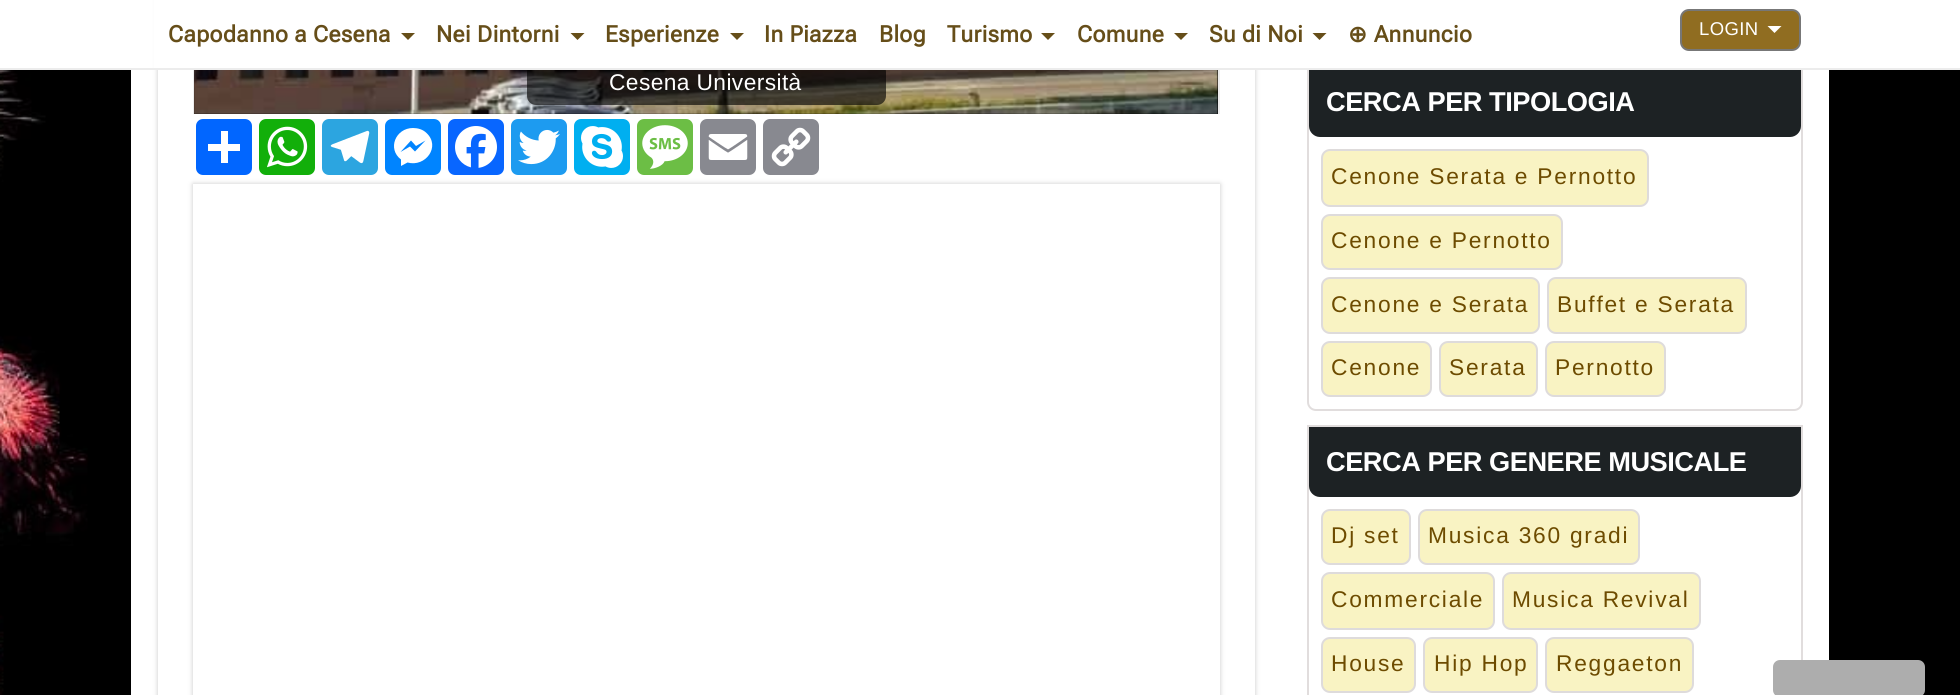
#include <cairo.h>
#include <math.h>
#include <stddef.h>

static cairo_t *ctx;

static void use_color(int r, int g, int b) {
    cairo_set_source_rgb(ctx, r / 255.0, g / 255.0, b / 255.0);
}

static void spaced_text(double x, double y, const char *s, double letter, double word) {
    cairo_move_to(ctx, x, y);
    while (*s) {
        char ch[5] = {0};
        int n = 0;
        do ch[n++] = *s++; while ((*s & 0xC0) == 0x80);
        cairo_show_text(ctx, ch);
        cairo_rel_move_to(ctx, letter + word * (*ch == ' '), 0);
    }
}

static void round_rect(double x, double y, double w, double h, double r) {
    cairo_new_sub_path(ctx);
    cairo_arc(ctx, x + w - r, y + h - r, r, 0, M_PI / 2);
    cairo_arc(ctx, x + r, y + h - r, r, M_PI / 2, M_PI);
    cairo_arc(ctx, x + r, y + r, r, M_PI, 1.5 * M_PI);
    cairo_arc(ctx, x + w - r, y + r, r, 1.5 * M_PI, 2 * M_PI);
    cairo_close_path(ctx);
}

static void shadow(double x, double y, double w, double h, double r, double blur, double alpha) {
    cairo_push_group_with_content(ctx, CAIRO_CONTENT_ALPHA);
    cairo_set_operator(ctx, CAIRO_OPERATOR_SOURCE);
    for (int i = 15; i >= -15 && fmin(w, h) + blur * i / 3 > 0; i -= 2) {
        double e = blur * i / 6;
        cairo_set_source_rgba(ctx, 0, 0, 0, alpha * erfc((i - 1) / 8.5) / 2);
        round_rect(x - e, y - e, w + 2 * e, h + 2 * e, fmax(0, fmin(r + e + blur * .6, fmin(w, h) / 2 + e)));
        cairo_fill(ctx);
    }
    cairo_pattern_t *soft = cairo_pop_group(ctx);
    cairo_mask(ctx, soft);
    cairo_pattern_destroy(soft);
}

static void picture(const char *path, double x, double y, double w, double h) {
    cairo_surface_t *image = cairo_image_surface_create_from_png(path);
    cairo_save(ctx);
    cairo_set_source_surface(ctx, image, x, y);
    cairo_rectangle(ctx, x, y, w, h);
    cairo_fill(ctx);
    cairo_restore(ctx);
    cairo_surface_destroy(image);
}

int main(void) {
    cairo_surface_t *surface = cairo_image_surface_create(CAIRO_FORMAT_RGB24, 1960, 695);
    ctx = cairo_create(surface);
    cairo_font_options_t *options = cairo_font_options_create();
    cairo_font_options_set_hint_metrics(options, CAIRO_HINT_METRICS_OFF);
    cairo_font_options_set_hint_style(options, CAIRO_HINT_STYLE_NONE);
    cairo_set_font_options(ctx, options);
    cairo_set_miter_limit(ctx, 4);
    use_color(255, 255, 255);
    cairo_paint(ctx);
    picture("img1.png", 0, 70, 1960, 625);
    use_color(255, 255, 255);
    cairo_rectangle(ctx, 131, 70, 1698, 625);
    cairo_fill(ctx);
    use_color(202, 202, 202);
    shadow(158, -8, 1097, 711, 0, 2.5, 1);
    use_color(255, 255, 255);
    cairo_rectangle(ctx, 158, 70, 1097, 625);
    cairo_fill(ctx);
    use_color(0, 0, 0);
    cairo_rectangle(ctx, 194, 70, 1024, 44);
    cairo_fill(ctx);
    picture("img2.png", 194, 70, 1024, 44);
    cairo_set_source_rgba(ctx, 0, 0, 0, 0.63);
    round_rect(527, 63, 359, 42, 9);
    cairo_fill(ctx);
    cairo_new_path(ctx);
    cairo_move_to(ctx, 1308, 68);
    cairo_line_to(ctx, 1802, 68);
    cairo_line_to(ctx, 1802, 402);
    cairo_curve_to(ctx, 1802, 406.5, 1798.5, 410, 1794, 410);
    cairo_line_to(ctx, 1316, 410);
    cairo_curve_to(ctx, 1311.5, 410, 1308, 406.5, 1308, 402);
    cairo_close_path(ctx);
    use_color(225, 221, 221);
    cairo_stroke(ctx);
    use_color(255, 255, 255);
    cairo_rectangle(ctx, 154, 0, 1649, 68);
    cairo_fill(ctx);
    use_color(29, 34, 36);
    cairo_new_path(ctx);
    cairo_move_to(ctx, 1309, 68);
    cairo_line_to(ctx, 1801, 68);
    cairo_line_to(ctx, 1801, 126);
    cairo_curve_to(ctx, 1801, 132, 1796, 137, 1790, 137);
    cairo_line_to(ctx, 1320, 137);
    cairo_curve_to(ctx, 1314, 137, 1309, 132, 1309, 126);
    cairo_close_path(ctx);
    cairo_fill(ctx);
    use_color(236, 236, 236);
    cairo_rectangle(ctx, 0, 68, 1960, 2);
    cairo_fill(ctx);
    cairo_select_font_face(ctx, "Roboto Flex", CAIRO_FONT_SLANT_NORMAL, CAIRO_FONT_WEIGHT_BOLD);
    cairo_set_font_size(ctx, 22.75);
    use_color(102, 78, 25);
    spaced_text(168, 42, "Capodanno a Cesena", 0.4, 0);
    cairo_new_path(ctx);
    cairo_move_to(ctx, 401, 33);
    cairo_line_to(ctx, 415, 33);
    cairo_line_to(ctx, 408, 40);
    cairo_close_path(ctx);
    cairo_fill(ctx);
    spaced_text(436, 42, "Nei Dintorni", 0.4, 0);
    cairo_new_path(ctx);
    cairo_move_to(ctx, 570.5, 33);
    cairo_line_to(ctx, 584.5, 33);
    cairo_line_to(ctx, 577.5, 40);
    cairo_close_path(ctx);
    cairo_fill(ctx);
    spaced_text(605, 42, "Esperienze", 0.4, 0);
    cairo_new_path(ctx);
    cairo_move_to(ctx, 730, 33);
    cairo_line_to(ctx, 744, 33);
    cairo_line_to(ctx, 737, 40);
    cairo_close_path(ctx);
    cairo_fill(ctx);
    spaced_text(764, 42, "In Piazza", 0.4, 0);
    spaced_text(879, 42, "Blog", 0.4, 0);
    spaced_text(947, 42, "Turismo", 0.4, 0);
    cairo_new_path(ctx);
    cairo_move_to(ctx, 1041, 33);
    cairo_line_to(ctx, 1055, 33);
    cairo_line_to(ctx, 1048, 40);
    cairo_close_path(ctx);
    cairo_fill(ctx);
    spaced_text(1077, 42, "Comune", 0.4, 0);
    cairo_new_path(ctx);
    cairo_move_to(ctx, 1174, 33);
    cairo_line_to(ctx, 1188, 33);
    cairo_line_to(ctx, 1181, 40);
    cairo_close_path(ctx);
    cairo_fill(ctx);
    spaced_text(1209, 42, "Su di Noi", 0.4, 0);
    cairo_new_path(ctx);
    cairo_move_to(ctx, 1312.5, 33);
    cairo_line_to(ctx, 1326.5, 33);
    cairo_line_to(ctx, 1319.5, 40);
    cairo_close_path(ctx);
    cairo_fill(ctx);
    cairo_select_font_face(ctx, "DejaVu Sans", CAIRO_FONT_SLANT_NORMAL, CAIRO_FONT_WEIGHT_BOLD);
    spaced_text(1348, 42, "⊕", 0.4, 0);
    cairo_select_font_face(ctx, "Roboto Flex", CAIRO_FONT_SLANT_NORMAL, CAIRO_FONT_WEIGHT_BOLD);
    spaced_text(1374, 42, "Annuncio", 0.4, 0);
    use_color(144, 109, 33);
    round_rect(1681, 10, 119, 40, 8);
    cairo_fill_preserve(ctx);
    use_color(119, 119, 119);
    cairo_stroke(ctx);
    cairo_select_font_face(ctx, "Liberation Sans", CAIRO_FONT_SLANT_NORMAL, CAIRO_FONT_WEIGHT_NORMAL);
    cairo_set_font_size(ctx, 18.5);
    use_color(255, 255, 255);
    spaced_text(1699, 35, "LOGIN", 0.4, 0);
    cairo_new_path(ctx);
    cairo_move_to(ctx, 1767.5, 26);
    cairo_line_to(ctx, 1781.5, 26);
    cairo_line_to(ctx, 1774.5, 33);
    cairo_close_path(ctx);
    cairo_fill(ctx);
    use_color(237, 237, 237);
    cairo_rectangle(ctx, 1218, 70, 2, 44);
    cairo_fill(ctx);
    cairo_rectangle(ctx, 193, 70, 1, 44);
    cairo_fill(ctx);
    cairo_set_font_size(ctx, 22.75);
    use_color(255, 255, 255);
    spaced_text(609, 90, "Cesena Università", 0.4, 0);
    use_color(1, 102, 255);
    round_rect(196, 119, 56, 56, 7);
    cairo_fill(ctx);
    use_color(255, 255, 255);
    cairo_rectangle(ctx, 221, 131, 7, 32);
    cairo_fill(ctx);
    cairo_rectangle(ctx, 208, 144, 32, 7);
    cairo_fill(ctx);
    use_color(18, 175, 10);
    round_rect(259, 119, 56, 56, 7);
    cairo_fill(ctx);
    picture("img3.png", 267, 126, 41, 42);
    use_color(44, 165, 224);
    round_rect(322, 119, 56, 56, 7);
    cairo_fill(ctx);
    picture("img4.png", 330, 130, 40, 34);
    use_color(0, 132, 255);
    round_rect(385, 119, 56, 56, 7);
    cairo_fill(ctx);
    use_color(255, 255, 255);
    cairo_new_path(ctx);
    cairo_move_to(ctx, 413, 128);
    cairo_curve_to(ctx, 395.5, 128, 387, 149, 401, 159.5);
    cairo_line_to(ctx, 401, 166);
    cairo_line_to(ctx, 407.5, 162.5);
    cairo_curve_to(ctx, 425.5, 167.5, 441, 146.5, 426.5, 133);
    cairo_curve_to(ctx, 423, 129.5, 418, 128, 413, 128);
    cairo_move_to(ctx, 415, 151.5);
    cairo_line_to(ctx, 410, 146.5);
    cairo_line_to(ctx, 400.5, 152);
    cairo_line_to(ctx, 411, 140.5);
    cairo_line_to(ctx, 416, 146);
    cairo_line_to(ctx, 425.5, 140.5);
    cairo_close_path(ctx);
    cairo_fill(ctx);
    use_color(8, 102, 255);
    round_rect(448, 119, 56, 56, 7);
    cairo_fill(ctx);
    picture("img5.png", 455, 126, 42, 42);
    use_color(29, 155, 240);
    round_rect(511, 119, 56, 56, 7);
    cairo_fill(ctx);
    picture("img6.png", 518, 129, 42, 36);
    use_color(0, 175, 240);
    round_rect(574, 119, 56, 56, 7);
    cairo_fill(ctx);
    picture("img7.png", 581, 126, 42, 42);
    use_color(108, 190, 69);
    round_rect(637, 119, 56, 56, 7);
    cairo_fill(ctx);
    picture("img8.png", 642, 125, 46, 44);
    use_color(136, 137, 144);
    round_rect(700, 119, 56, 56, 7);
    cairo_fill(ctx);
    picture("img9.png", 708, 134, 40, 26);
    round_rect(763, 119, 56, 56, 7);
    cairo_fill(ctx);
    picture("img10.png", 771, 127, 40, 40);
    use_color(202, 202, 202);
    shadow(193, 184, 1027, 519, 0, 2.5, 1);
    use_color(255, 255, 255);
    cairo_rectangle(ctx, 193, 184, 1027, 511);
    cairo_fill(ctx);
    cairo_select_font_face(ctx, "Liberation Sans", CAIRO_FONT_SLANT_NORMAL, CAIRO_FONT_WEIGHT_BOLD);
    cairo_set_font_size(ctx, 27.25);
    spaced_text(1326, 111, "CERCA PER TIPOLOGIA", -0.5, 0);
    use_color(249, 243, 195);
    round_rect(1322, 150, 326, 56, 8);
    cairo_fill_preserve(ctx);
    use_color(222, 219, 219);
    cairo_stroke(ctx);
    cairo_select_font_face(ctx, "Liberation Sans", CAIRO_FONT_SLANT_NORMAL, CAIRO_FONT_WEIGHT_NORMAL);
    cairo_set_font_size(ctx, 22.75);
    use_color(109, 75, 0);
    spaced_text(1331, 184, "Cenone Serata e Pernotto", 1.75, 0);
    use_color(249, 243, 195);
    round_rect(1322, 215, 240, 54, 8);
    cairo_fill_preserve(ctx);
    use_color(222, 219, 219);
    cairo_stroke(ctx);
    use_color(109, 75, 0);
    spaced_text(1331, 248, "Cenone e Pernotto", 1.75, 0);
    use_color(249, 243, 195);
    round_rect(1322, 278, 217, 55, 8);
    cairo_fill_preserve(ctx);
    use_color(222, 219, 219);
    cairo_stroke(ctx);
    use_color(109, 75, 0);
    spaced_text(1331, 312, "Cenone e Serata", 1.75, 0);
    use_color(249, 243, 195);
    round_rect(1548, 278, 198, 55, 8);
    cairo_fill_preserve(ctx);
    use_color(222, 219, 219);
    cairo_stroke(ctx);
    use_color(109, 75, 0);
    spaced_text(1557, 312, "Buffet e Serata", 1.75, 0);
    use_color(249, 243, 195);
    round_rect(1322, 342, 109, 54, 8);
    cairo_fill_preserve(ctx);
    use_color(222, 219, 219);
    cairo_stroke(ctx);
    use_color(109, 75, 0);
    spaced_text(1331, 375, "Cenone", 1.75, 0);
    use_color(249, 243, 195);
    round_rect(1440, 342, 97, 54, 8);
    cairo_fill_preserve(ctx);
    use_color(222, 219, 219);
    cairo_stroke(ctx);
    use_color(109, 75, 0);
    spaced_text(1449, 375, "Serata", 1.75, 0);
    use_color(249, 243, 195);
    round_rect(1546, 342, 119, 54, 8);
    cairo_fill_preserve(ctx);
    use_color(222, 219, 219);
    cairo_stroke(ctx);
    use_color(109, 75, 0);
    spaced_text(1555, 375, "Pernotto", 1.75, 0);
    cairo_rectangle(ctx, 1308, 426, 494, 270);
    use_color(225, 221, 221);
    cairo_stroke(ctx);
    use_color(29, 34, 36);
    cairo_new_path(ctx);
    cairo_move_to(ctx, 1309, 427);
    cairo_line_to(ctx, 1801, 427);
    cairo_line_to(ctx, 1801, 486);
    cairo_curve_to(ctx, 1801, 492, 1796, 497, 1790, 497);
    cairo_line_to(ctx, 1320, 497);
    cairo_curve_to(ctx, 1314, 497, 1309, 492, 1309, 486);
    cairo_close_path(ctx);
    cairo_fill(ctx);
    cairo_select_font_face(ctx, "Liberation Sans", CAIRO_FONT_SLANT_NORMAL, CAIRO_FONT_WEIGHT_BOLD);
    cairo_set_font_size(ctx, 27.25);
    use_color(255, 255, 255);
    spaced_text(1326, 471, "CERCA PER GENERE MUSICALE", -0.5, 0);
    use_color(249, 243, 195);
    round_rect(1322, 510, 88, 54, 8);
    cairo_fill_preserve(ctx);
    use_color(222, 219, 219);
    cairo_stroke(ctx);
    cairo_select_font_face(ctx, "Liberation Sans", CAIRO_FONT_SLANT_NORMAL, CAIRO_FONT_WEIGHT_NORMAL);
    cairo_set_font_size(ctx, 22.75);
    use_color(109, 75, 0);
    spaced_text(1331, 543, "Dj set", 1.75, 0);
    use_color(249, 243, 195);
    round_rect(1419, 510, 220, 54, 8);
    cairo_fill_preserve(ctx);
    use_color(222, 219, 219);
    cairo_stroke(ctx);
    use_color(109, 75, 0);
    spaced_text(1428, 543, "Musica 360 gradi", 1.75, 0);
    use_color(249, 243, 195);
    round_rect(1322, 573, 172, 56, 8);
    cairo_fill_preserve(ctx);
    use_color(222, 219, 219);
    cairo_stroke(ctx);
    use_color(109, 75, 0);
    spaced_text(1331, 607, "Commerciale", 1.75, 0);
    use_color(249, 243, 195);
    round_rect(1503, 573, 197, 56, 8);
    cairo_fill_preserve(ctx);
    use_color(222, 219, 219);
    cairo_stroke(ctx);
    use_color(109, 75, 0);
    spaced_text(1512, 607, "Musica Revival", 1.75, 0);
    use_color(249, 243, 195);
    round_rect(1322, 638, 93, 54, 8);
    cairo_fill_preserve(ctx);
    use_color(222, 219, 219);
    cairo_stroke(ctx);
    use_color(109, 75, 0);
    spaced_text(1331, 671, "House", 1.75, 0);
    use_color(249, 243, 195);
    round_rect(1424, 638, 113, 54, 8);
    cairo_fill_preserve(ctx);
    use_color(222, 219, 219);
    cairo_stroke(ctx);
    use_color(109, 75, 0);
    spaced_text(1434, 671, "Hip Hop", 1.75, 0);
    use_color(249, 243, 195);
    round_rect(1546, 638, 147, 54, 8);
    cairo_fill_preserve(ctx);
    use_color(222, 219, 219);
    cairo_stroke(ctx);
    use_color(109, 75, 0);
    spaced_text(1556, 671, "Reggaeton", 1.75, 0);
    use_color(173, 173, 173);
    round_rect(1773, 660, 152, 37, 7);
    cairo_fill(ctx);
    cairo_surface_write_to_png(surface, "result.png");
    cairo_font_options_destroy(options);
    cairo_destroy(ctx);
    cairo_surface_destroy(surface);
    return 0;
}
